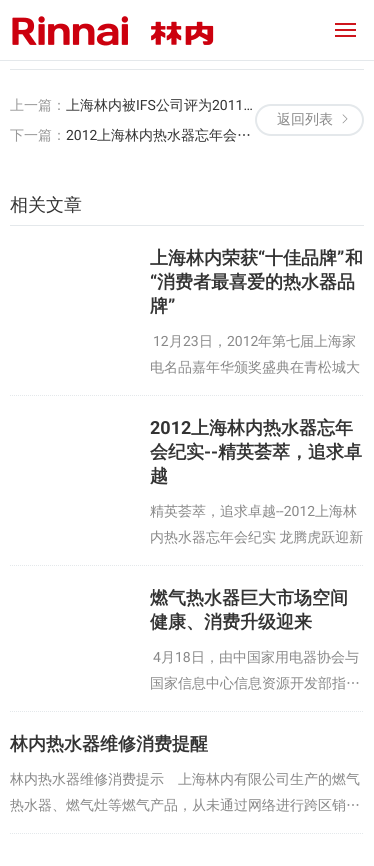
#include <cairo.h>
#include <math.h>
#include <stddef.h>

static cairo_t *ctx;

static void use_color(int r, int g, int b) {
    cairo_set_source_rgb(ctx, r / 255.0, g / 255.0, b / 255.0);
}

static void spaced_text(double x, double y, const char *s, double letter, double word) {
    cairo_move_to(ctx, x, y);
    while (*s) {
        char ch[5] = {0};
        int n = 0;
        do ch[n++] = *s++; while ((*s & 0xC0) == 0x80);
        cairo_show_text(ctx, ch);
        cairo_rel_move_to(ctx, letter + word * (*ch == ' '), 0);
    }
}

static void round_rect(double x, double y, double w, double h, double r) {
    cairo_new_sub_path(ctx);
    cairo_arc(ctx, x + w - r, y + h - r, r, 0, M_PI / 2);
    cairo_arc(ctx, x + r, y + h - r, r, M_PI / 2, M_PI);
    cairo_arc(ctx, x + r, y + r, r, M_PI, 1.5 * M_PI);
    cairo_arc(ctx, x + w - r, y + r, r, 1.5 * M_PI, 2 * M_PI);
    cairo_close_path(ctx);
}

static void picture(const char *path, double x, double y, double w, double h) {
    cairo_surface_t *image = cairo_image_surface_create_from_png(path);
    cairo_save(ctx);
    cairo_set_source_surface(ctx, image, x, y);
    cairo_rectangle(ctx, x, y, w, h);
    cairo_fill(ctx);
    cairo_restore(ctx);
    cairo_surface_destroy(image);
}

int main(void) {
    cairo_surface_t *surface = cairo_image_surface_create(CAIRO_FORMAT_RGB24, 374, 866);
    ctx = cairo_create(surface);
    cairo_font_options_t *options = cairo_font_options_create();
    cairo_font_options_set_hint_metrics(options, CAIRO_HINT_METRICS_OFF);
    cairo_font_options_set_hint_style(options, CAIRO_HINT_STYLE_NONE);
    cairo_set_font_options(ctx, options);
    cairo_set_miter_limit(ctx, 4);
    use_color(255, 255, 255);
    cairo_paint(ctx);
    use_color(228, 232, 235);
    cairo_rectangle(ctx, 0, 60, 374, 1);
    cairo_fill(ctx);
    picture("img1.png", 12, 16, 202, 30);
    use_color(206, 21, 28);
    cairo_rectangle(ctx, 335, 23, 21, 2);
    cairo_fill(ctx);
    cairo_rectangle(ctx, 335, 29, 21, 2);
    cairo_fill(ctx);
    cairo_rectangle(ctx, 335, 35, 21, 2);
    cairo_fill(ctx);
    use_color(228, 232, 235);
    cairo_rectangle(ctx, 10, 69, 354, 1);
    cairo_fill(ctx);
    cairo_select_font_face(ctx, "WenQuanYi Zen Hei Medium", CAIRO_FONT_SLANT_NORMAL, CAIRO_FONT_WEIGHT_NORMAL);
    cairo_set_font_size(ctx, 14);
    use_color(153, 153, 153);
    cairo_move_to(ctx, 10, 110);
    cairo_show_text(ctx, "上一篇：");
    use_color(51, 51, 51);
    cairo_move_to(ctx, 66, 110);
    cairo_show_text(ctx, "上海林内被");
    cairo_select_font_face(ctx, "Roboto", CAIRO_FONT_SLANT_NORMAL, CAIRO_FONT_WEIGHT_NORMAL);
    cairo_move_to(ctx, 136, 110);
    cairo_show_text(ctx, "IFS");
    cairo_select_font_face(ctx, "WenQuanYi Zen Hei Medium", CAIRO_FONT_SLANT_NORMAL, CAIRO_FONT_WEIGHT_NORMAL);
    cairo_move_to(ctx, 156, 110);
    cairo_show_text(ctx, "公司评为");
    cairo_select_font_face(ctx, "Roboto", CAIRO_FONT_SLANT_NORMAL, CAIRO_FONT_WEIGHT_NORMAL);
    cairo_move_to(ctx, 212, 110);
    cairo_show_text(ctx, "2011…");
    round_rect(256, 105, 107, 30, 15);
    use_color(228, 232, 235);
    cairo_stroke(ctx);
    cairo_select_font_face(ctx, "WenQuanYi Zen Hei Medium", CAIRO_FONT_SLANT_NORMAL, CAIRO_FONT_WEIGHT_NORMAL);
    use_color(136, 136, 136);
    cairo_move_to(ctx, 277, 124);
    cairo_show_text(ctx, "返回列表");
    picture("img2.png", 342, 114, 6, 10);
    use_color(153, 153, 153);
    cairo_move_to(ctx, 10, 140);
    cairo_show_text(ctx, "下一篇：");
    cairo_select_font_face(ctx, "Roboto", CAIRO_FONT_SLANT_NORMAL, CAIRO_FONT_WEIGHT_NORMAL);
    use_color(51, 51, 51);
    cairo_move_to(ctx, 66, 140);
    cairo_show_text(ctx, "2012");
    cairo_select_font_face(ctx, "WenQuanYi Zen Hei Medium", CAIRO_FONT_SLANT_NORMAL, CAIRO_FONT_WEIGHT_NORMAL);
    cairo_move_to(ctx, 97, 140);
    cairo_show_text(ctx, "上海林内热水器忘年会…");
    use_color(228, 232, 235);
    cairo_rectangle(ctx, 10, 225, 354, 1);
    cairo_fill(ctx);
    cairo_set_font_size(ctx, 18);
    use_color(51, 51, 51);
    cairo_move_to(ctx, 10, 211);
    cairo_show_text(ctx, "相关文章");
    cairo_select_font_face(ctx, "WenQuanYi Zen Hei", CAIRO_FONT_SLANT_NORMAL, CAIRO_FONT_WEIGHT_BOLD);
    cairo_move_to(ctx, 150, 264);
    cairo_show_text(ctx, "上海林内荣获");
    cairo_select_font_face(ctx, "Roboto", CAIRO_FONT_SLANT_NORMAL, CAIRO_FONT_WEIGHT_BOLD);
    cairo_move_to(ctx, 258, 264);
    cairo_show_text(ctx, "“");
    cairo_select_font_face(ctx, "WenQuanYi Zen Hei", CAIRO_FONT_SLANT_NORMAL, CAIRO_FONT_WEIGHT_BOLD);
    cairo_move_to(ctx, 265, 264);
    cairo_show_text(ctx, "十佳品牌");
    cairo_select_font_face(ctx, "Roboto", CAIRO_FONT_SLANT_NORMAL, CAIRO_FONT_WEIGHT_BOLD);
    cairo_move_to(ctx, 337, 264);
    cairo_show_text(ctx, "”");
    cairo_select_font_face(ctx, "WenQuanYi Zen Hei", CAIRO_FONT_SLANT_NORMAL, CAIRO_FONT_WEIGHT_BOLD);
    cairo_move_to(ctx, 345, 264);
    cairo_show_text(ctx, "和");
    cairo_select_font_face(ctx, "Roboto", CAIRO_FONT_SLANT_NORMAL, CAIRO_FONT_WEIGHT_BOLD);
    cairo_move_to(ctx, 150, 288);
    cairo_show_text(ctx, "“");
    cairo_select_font_face(ctx, "WenQuanYi Zen Hei", CAIRO_FONT_SLANT_NORMAL, CAIRO_FONT_WEIGHT_BOLD);
    cairo_move_to(ctx, 157, 288);
    cairo_show_text(ctx, "消费者最喜爱的热水器品");
    cairo_move_to(ctx, 150, 312);
    cairo_show_text(ctx, "牌");
    cairo_select_font_face(ctx, "Roboto", CAIRO_FONT_SLANT_NORMAL, CAIRO_FONT_WEIGHT_BOLD);
    cairo_move_to(ctx, 168, 312);
    cairo_show_text(ctx, "”");
    cairo_select_font_face(ctx, "Roboto", CAIRO_FONT_SLANT_NORMAL, CAIRO_FONT_WEIGHT_NORMAL);
    cairo_set_font_size(ctx, 14);
    use_color(136, 136, 136);
    cairo_move_to(ctx, 153, 346);
    cairo_show_text(ctx, "12");
    cairo_select_font_face(ctx, "WenQuanYi Zen Hei Medium", CAIRO_FONT_SLANT_NORMAL, CAIRO_FONT_WEIGHT_NORMAL);
    cairo_move_to(ctx, 169, 346);
    cairo_show_text(ctx, "月");
    cairo_select_font_face(ctx, "Roboto", CAIRO_FONT_SLANT_NORMAL, CAIRO_FONT_WEIGHT_NORMAL);
    cairo_move_to(ctx, 183, 346);
    cairo_show_text(ctx, "23");
    cairo_select_font_face(ctx, "WenQuanYi Zen Hei Medium", CAIRO_FONT_SLANT_NORMAL, CAIRO_FONT_WEIGHT_NORMAL);
    cairo_move_to(ctx, 199, 346);
    cairo_show_text(ctx, "日，");
    cairo_select_font_face(ctx, "Roboto", CAIRO_FONT_SLANT_NORMAL, CAIRO_FONT_WEIGHT_NORMAL);
    cairo_move_to(ctx, 227, 346);
    cairo_show_text(ctx, "2012");
    cairo_select_font_face(ctx, "WenQuanYi Zen Hei Medium", CAIRO_FONT_SLANT_NORMAL, CAIRO_FONT_WEIGHT_NORMAL);
    cairo_move_to(ctx, 258, 346);
    cairo_show_text(ctx, "年第七届上海家");
    cairo_move_to(ctx, 150, 372);
    cairo_show_text(ctx, "电名品嘉年华颁奖盛典在青松城大");
    cairo_new_path(ctx);
    cairo_move_to(ctx, 10, 395.5);
    cairo_line_to(ctx, 364, 395.5);
    use_color(228, 232, 235);
    cairo_set_line_width(ctx, 1);
    cairo_set_dash(ctx, (double[]){1, 1}, 2, 0);
    cairo_stroke(ctx);
    cairo_select_font_face(ctx, "Roboto", CAIRO_FONT_SLANT_NORMAL, CAIRO_FONT_WEIGHT_BOLD);
    cairo_set_font_size(ctx, 18);
    use_color(51, 51, 51);
    cairo_move_to(ctx, 150, 434);
    cairo_show_text(ctx, "2012");
    cairo_select_font_face(ctx, "WenQuanYi Zen Hei", CAIRO_FONT_SLANT_NORMAL, CAIRO_FONT_WEIGHT_BOLD);
    cairo_move_to(ctx, 191, 434);
    cairo_show_text(ctx, "上海林内热水器忘年");
    cairo_move_to(ctx, 150, 458);
    cairo_show_text(ctx, "会纪实");
    cairo_select_font_face(ctx, "Roboto", CAIRO_FONT_SLANT_NORMAL, CAIRO_FONT_WEIGHT_BOLD);
    cairo_move_to(ctx, 204, 458);
    cairo_show_text(ctx, "--");
    cairo_select_font_face(ctx, "WenQuanYi Zen Hei", CAIRO_FONT_SLANT_NORMAL, CAIRO_FONT_WEIGHT_BOLD);
    cairo_move_to(ctx, 218, 458);
    cairo_show_text(ctx, "精英荟萃，追求卓");
    cairo_move_to(ctx, 150, 482);
    cairo_show_text(ctx, "越");
    cairo_select_font_face(ctx, "WenQuanYi Zen Hei Medium", CAIRO_FONT_SLANT_NORMAL, CAIRO_FONT_WEIGHT_NORMAL);
    cairo_set_font_size(ctx, 14);
    use_color(136, 136, 136);
    cairo_move_to(ctx, 150, 516);
    cairo_show_text(ctx, "精英荟萃，追求卓越");
    cairo_select_font_face(ctx, "Roboto", CAIRO_FONT_SLANT_NORMAL, CAIRO_FONT_WEIGHT_NORMAL);
    cairo_move_to(ctx, 276, 516);
    cairo_show_text(ctx, "--2012");
    cairo_select_font_face(ctx, "WenQuanYi Zen Hei Medium", CAIRO_FONT_SLANT_NORMAL, CAIRO_FONT_WEIGHT_NORMAL);
    cairo_move_to(ctx, 315, 516);
    cairo_show_text(ctx, "上海林");
    spaced_text(150, 542, "内热水器忘年会纪实 龙腾虎跃迎新", 0, -1);
    cairo_new_path(ctx);
    cairo_move_to(ctx, 10, 565.5);
    cairo_line_to(ctx, 364, 565.5);
    use_color(228, 232, 235);
    cairo_stroke(ctx);
    cairo_select_font_face(ctx, "WenQuanYi Zen Hei", CAIRO_FONT_SLANT_NORMAL, CAIRO_FONT_WEIGHT_BOLD);
    cairo_set_font_size(ctx, 18);
    use_color(51, 51, 51);
    cairo_move_to(ctx, 150, 604);
    cairo_show_text(ctx, "燃气热水器巨大市场空间");
    cairo_move_to(ctx, 150, 628);
    cairo_show_text(ctx, "健康、消费升级迎来");
    cairo_select_font_face(ctx, "Roboto", CAIRO_FONT_SLANT_NORMAL, CAIRO_FONT_WEIGHT_NORMAL);
    cairo_set_font_size(ctx, 14);
    use_color(136, 136, 136);
    cairo_move_to(ctx, 153, 662);
    cairo_show_text(ctx, "4");
    cairo_select_font_face(ctx, "WenQuanYi Zen Hei Medium", CAIRO_FONT_SLANT_NORMAL, CAIRO_FONT_WEIGHT_NORMAL);
    cairo_move_to(ctx, 161, 662);
    cairo_show_text(ctx, "月");
    cairo_select_font_face(ctx, "Roboto", CAIRO_FONT_SLANT_NORMAL, CAIRO_FONT_WEIGHT_NORMAL);
    cairo_move_to(ctx, 175, 662);
    cairo_show_text(ctx, "18");
    cairo_select_font_face(ctx, "WenQuanYi Zen Hei Medium", CAIRO_FONT_SLANT_NORMAL, CAIRO_FONT_WEIGHT_NORMAL);
    cairo_move_to(ctx, 191, 662);
    cairo_show_text(ctx, "日，由中国家用电器协会与");
    cairo_move_to(ctx, 150, 688);
    cairo_show_text(ctx, "国家信息中心信息资源开发部指…");
    cairo_new_path(ctx);
    cairo_move_to(ctx, 10, 711.5);
    cairo_line_to(ctx, 364, 711.5);
    use_color(228, 232, 235);
    cairo_stroke(ctx);
    cairo_select_font_face(ctx, "WenQuanYi Zen Hei", CAIRO_FONT_SLANT_NORMAL, CAIRO_FONT_WEIGHT_BOLD);
    cairo_set_font_size(ctx, 18);
    use_color(51, 51, 51);
    cairo_move_to(ctx, 10, 750);
    cairo_show_text(ctx, "林内热水器维修消费提醒");
    cairo_select_font_face(ctx, "WenQuanYi Zen Hei Medium", CAIRO_FONT_SLANT_NORMAL, CAIRO_FONT_WEIGHT_NORMAL);
    cairo_set_font_size(ctx, 14);
    use_color(136, 136, 136);
    cairo_move_to(ctx, 10, 784);
    cairo_show_text(ctx, "林内热水器维修消费提示");
    cairo_move_to(ctx, 178, 784);
    cairo_show_text(ctx, "上海林内有限公司生产的燃气");
    cairo_move_to(ctx, 10, 810);
    cairo_show_text(ctx, "热水器、燃气灶等燃气产品，从未通过网络进行跨区销…");
    cairo_new_path(ctx);
    cairo_move_to(ctx, 10, 833.5);
    cairo_line_to(ctx, 364, 833.5);
    use_color(228, 232, 235);
    cairo_stroke(ctx);
    cairo_surface_write_to_png(surface, "result.png");
    cairo_font_options_destroy(options);
    cairo_destroy(ctx);
    cairo_surface_destroy(surface);
    return 0;
}
